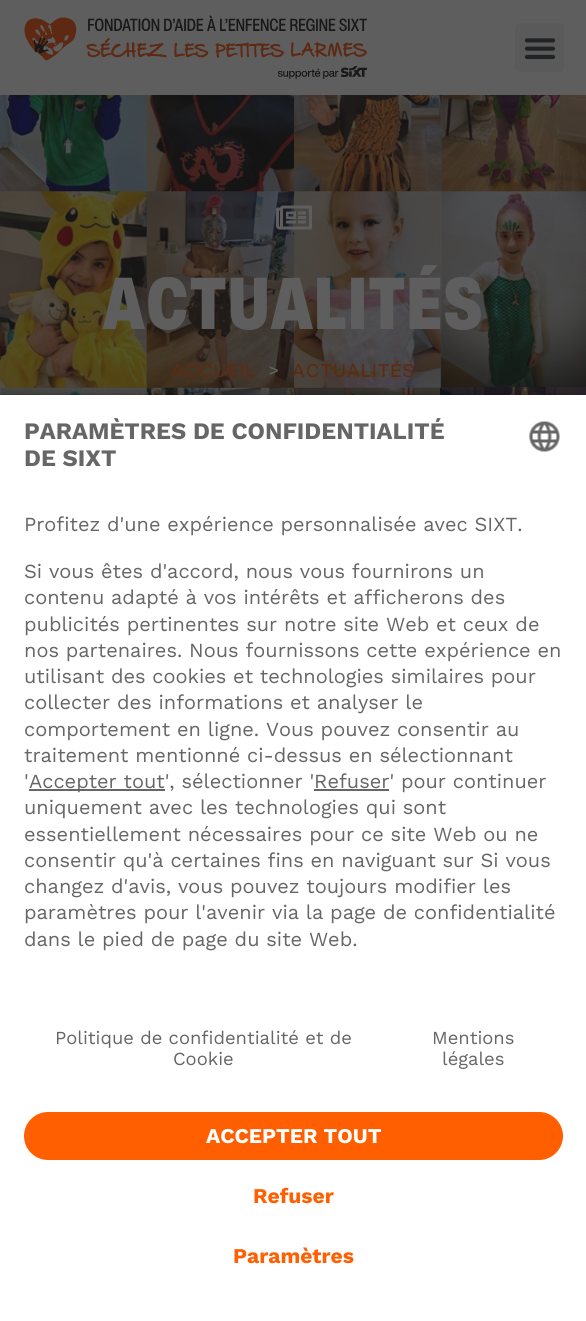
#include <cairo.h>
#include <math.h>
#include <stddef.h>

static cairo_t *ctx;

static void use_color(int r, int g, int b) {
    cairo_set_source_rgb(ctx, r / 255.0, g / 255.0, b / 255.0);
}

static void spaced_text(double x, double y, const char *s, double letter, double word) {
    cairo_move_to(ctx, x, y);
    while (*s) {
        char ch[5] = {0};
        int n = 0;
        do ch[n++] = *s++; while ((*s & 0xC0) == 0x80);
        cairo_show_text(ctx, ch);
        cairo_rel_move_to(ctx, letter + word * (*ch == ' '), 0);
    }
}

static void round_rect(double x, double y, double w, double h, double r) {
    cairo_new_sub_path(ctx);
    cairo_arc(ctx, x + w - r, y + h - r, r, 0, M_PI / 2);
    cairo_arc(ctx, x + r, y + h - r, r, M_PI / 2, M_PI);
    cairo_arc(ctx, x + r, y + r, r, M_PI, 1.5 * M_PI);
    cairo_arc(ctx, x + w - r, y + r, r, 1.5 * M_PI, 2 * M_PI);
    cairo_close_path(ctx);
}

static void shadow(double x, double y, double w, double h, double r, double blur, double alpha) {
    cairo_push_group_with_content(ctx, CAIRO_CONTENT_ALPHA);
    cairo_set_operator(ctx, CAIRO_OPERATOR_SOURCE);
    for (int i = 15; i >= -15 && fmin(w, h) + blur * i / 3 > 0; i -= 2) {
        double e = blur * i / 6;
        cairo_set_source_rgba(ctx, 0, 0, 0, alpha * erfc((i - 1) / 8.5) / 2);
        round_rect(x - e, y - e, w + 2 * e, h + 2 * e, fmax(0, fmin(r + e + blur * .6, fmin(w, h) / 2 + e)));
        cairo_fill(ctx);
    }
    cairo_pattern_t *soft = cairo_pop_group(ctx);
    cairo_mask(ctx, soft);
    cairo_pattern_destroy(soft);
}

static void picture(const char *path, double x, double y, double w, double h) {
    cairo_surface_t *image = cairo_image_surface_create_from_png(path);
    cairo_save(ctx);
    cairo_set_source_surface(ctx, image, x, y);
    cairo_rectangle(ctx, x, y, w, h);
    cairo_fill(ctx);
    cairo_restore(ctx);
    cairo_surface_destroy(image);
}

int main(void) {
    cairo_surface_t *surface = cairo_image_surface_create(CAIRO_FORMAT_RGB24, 586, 1321);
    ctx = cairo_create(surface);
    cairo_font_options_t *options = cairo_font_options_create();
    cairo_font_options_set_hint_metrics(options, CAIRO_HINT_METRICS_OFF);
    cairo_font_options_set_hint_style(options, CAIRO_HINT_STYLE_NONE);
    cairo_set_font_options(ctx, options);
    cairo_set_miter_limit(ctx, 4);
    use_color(255, 255, 255);
    cairo_paint(ctx);
    use_color(94, 94, 94);
    cairo_rectangle(ctx, 0, 0, 586, 95);
    cairo_fill(ctx);
    picture("img1.png", 24, 15, 343, 64);
    use_color(90, 90, 90);
    round_rect(515, 23, 49, 49, 5);
    cairo_fill(ctx);
    picture("img2.png", 524, 38, 32, 21);
    picture("img3.png", 0, 95, 586, 300);
    picture("img4.png", 276, 205, 36, 25);
    cairo_select_font_face(ctx, "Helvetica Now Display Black", CAIRO_FONT_SLANT_NORMAL, CAIRO_FONT_WEIGHT_NORMAL);
    cairo_set_font_size(ctx, 72);
    use_color(94, 94, 94);
    spaced_text(103, 329, "ACTUALITÉS", 2.25, 0);
    cairo_select_font_face(ctx, "Helvetica Now Display Medium", CAIRO_FONT_SLANT_NORMAL, CAIRO_FONT_WEIGHT_NORMAL);
    cairo_set_font_size(ctx, 18);
    use_color(94, 42, 18);
    spaced_text(171, 377, "ACCUEIL", 1.5, 0);
    use_color(94, 94, 94);
    spaced_text(269, 377, ">", 1.5, 0);
    use_color(94, 42, 18);
    spaced_text(292, 377, "ACTUALITÉS", 1.5, 0);
    use_color(0, 0, 0);
    shadow(0, 399, 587, 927, 0, 5, 0.8);
    use_color(255, 255, 255);
    cairo_rectangle(ctx, 0, 395, 586, 926);
    cairo_fill(ctx);
    cairo_select_font_face(ctx, "Work Sans", CAIRO_FONT_SLANT_NORMAL, CAIRO_FONT_WEIGHT_BOLD);
    cairo_set_font_size(ctx, 23.6);
    use_color(102, 102, 102);
    cairo_move_to(ctx, 24, 439);
    cairo_show_text(ctx, "PARAMÈTRES DE CONFIDENTIALITÉ");
    cairo_move_to(ctx, 24, 466);
    cairo_show_text(ctx, "DE SIXT");
    picture("img5.png", 529, 421, 31, 31);
    cairo_select_font_face(ctx, "Work Sans", CAIRO_FONT_SLANT_NORMAL, CAIRO_FONT_WEIGHT_NORMAL);
    cairo_set_font_size(ctx, 20);
    cairo_move_to(ctx, 24, 531);
    cairo_show_text(ctx, "Profitez d'une expérience personnalisée avec SIXT.");
    cairo_move_to(ctx, 24, 578);
    cairo_show_text(ctx, "Si vous êtes d'accord, nous vous fournirons un");
    cairo_move_to(ctx, 24, 604);
    cairo_show_text(ctx, "contenu adapté à vos intérêts et afficherons des");
    cairo_move_to(ctx, 24, 631);
    cairo_show_text(ctx, "publicités pertinentes sur notre site Web et ceux de");
    cairo_move_to(ctx, 24, 657);
    cairo_show_text(ctx, "nos partenaires. Nous fournissons cette expérience en");
    cairo_move_to(ctx, 24, 683);
    cairo_show_text(ctx, "utilisant des cookies et technologies similaires pour");
    cairo_move_to(ctx, 24, 709);
    cairo_show_text(ctx, "collecter des informations et analyser le");
    cairo_move_to(ctx, 24, 736);
    cairo_show_text(ctx, "comportement en ligne. Vous pouvez consentir au");
    cairo_move_to(ctx, 24, 762);
    cairo_show_text(ctx, "traitement mentionné ci-dessus en sélectionnant");
    cairo_move_to(ctx, 24, 788);
    cairo_show_text(ctx, "'");
    cairo_rectangle(ctx, 29, 789, 136, 2);
    cairo_fill(ctx);
    cairo_move_to(ctx, 29, 788);
    cairo_show_text(ctx, "Accepter tout', sélectionner 'Refuser' pour continuer");
    cairo_rectangle(ctx, 314, 789, 75, 2);
    cairo_fill(ctx);
    cairo_move_to(ctx, 24, 814);
    cairo_show_text(ctx, "uniquement avec les technologies qui sont");
    cairo_move_to(ctx, 24, 841);
    cairo_show_text(ctx, "essentiellement nécessaires pour ce site Web ou ne");
    cairo_move_to(ctx, 24, 867);
    cairo_show_text(ctx, "consentir qu'à certaines fins en naviguant sur Si vous");
    cairo_move_to(ctx, 24, 893);
    cairo_show_text(ctx, "changez d'avis, vous pouvez toujours modifier les");
    cairo_move_to(ctx, 24, 919);
    cairo_show_text(ctx, "paramètres pour l'avenir via la page de confidentialité");
    cairo_move_to(ctx, 24, 946);
    cairo_show_text(ctx, "dans le pied de page du site Web.");
    cairo_set_font_size(ctx, 18.4);
    cairo_move_to(ctx, 55, 1044);
    cairo_show_text(ctx, "Politique de confidentialité et de");
    cairo_move_to(ctx, 173, 1065);
    cairo_show_text(ctx, "Cookie");
    cairo_move_to(ctx, 432, 1044);
    cairo_show_text(ctx, "Mentions");
    cairo_move_to(ctx, 442, 1065);
    cairo_show_text(ctx, "légales");
    use_color(255, 95, 0);
    round_rect(24, 1112, 539, 48, 24);
    cairo_fill(ctx);
    cairo_select_font_face(ctx, "Work Sans", CAIRO_FONT_SLANT_NORMAL, CAIRO_FONT_WEIGHT_BOLD);
    cairo_set_font_size(ctx, 21);
    use_color(255, 255, 255);
    cairo_move_to(ctx, 206, 1143);
    cairo_show_text(ctx, "ACCEPTER TOUT");
    use_color(255, 95, 0);
    cairo_move_to(ctx, 253, 1203);
    cairo_show_text(ctx, "Refuser");
    cairo_move_to(ctx, 233, 1263);
    cairo_show_text(ctx, "Paramètres");
    cairo_surface_write_to_png(surface, "result.png");
    cairo_font_options_destroy(options);
    cairo_destroy(ctx);
    cairo_surface_destroy(surface);
    return 0;
}
